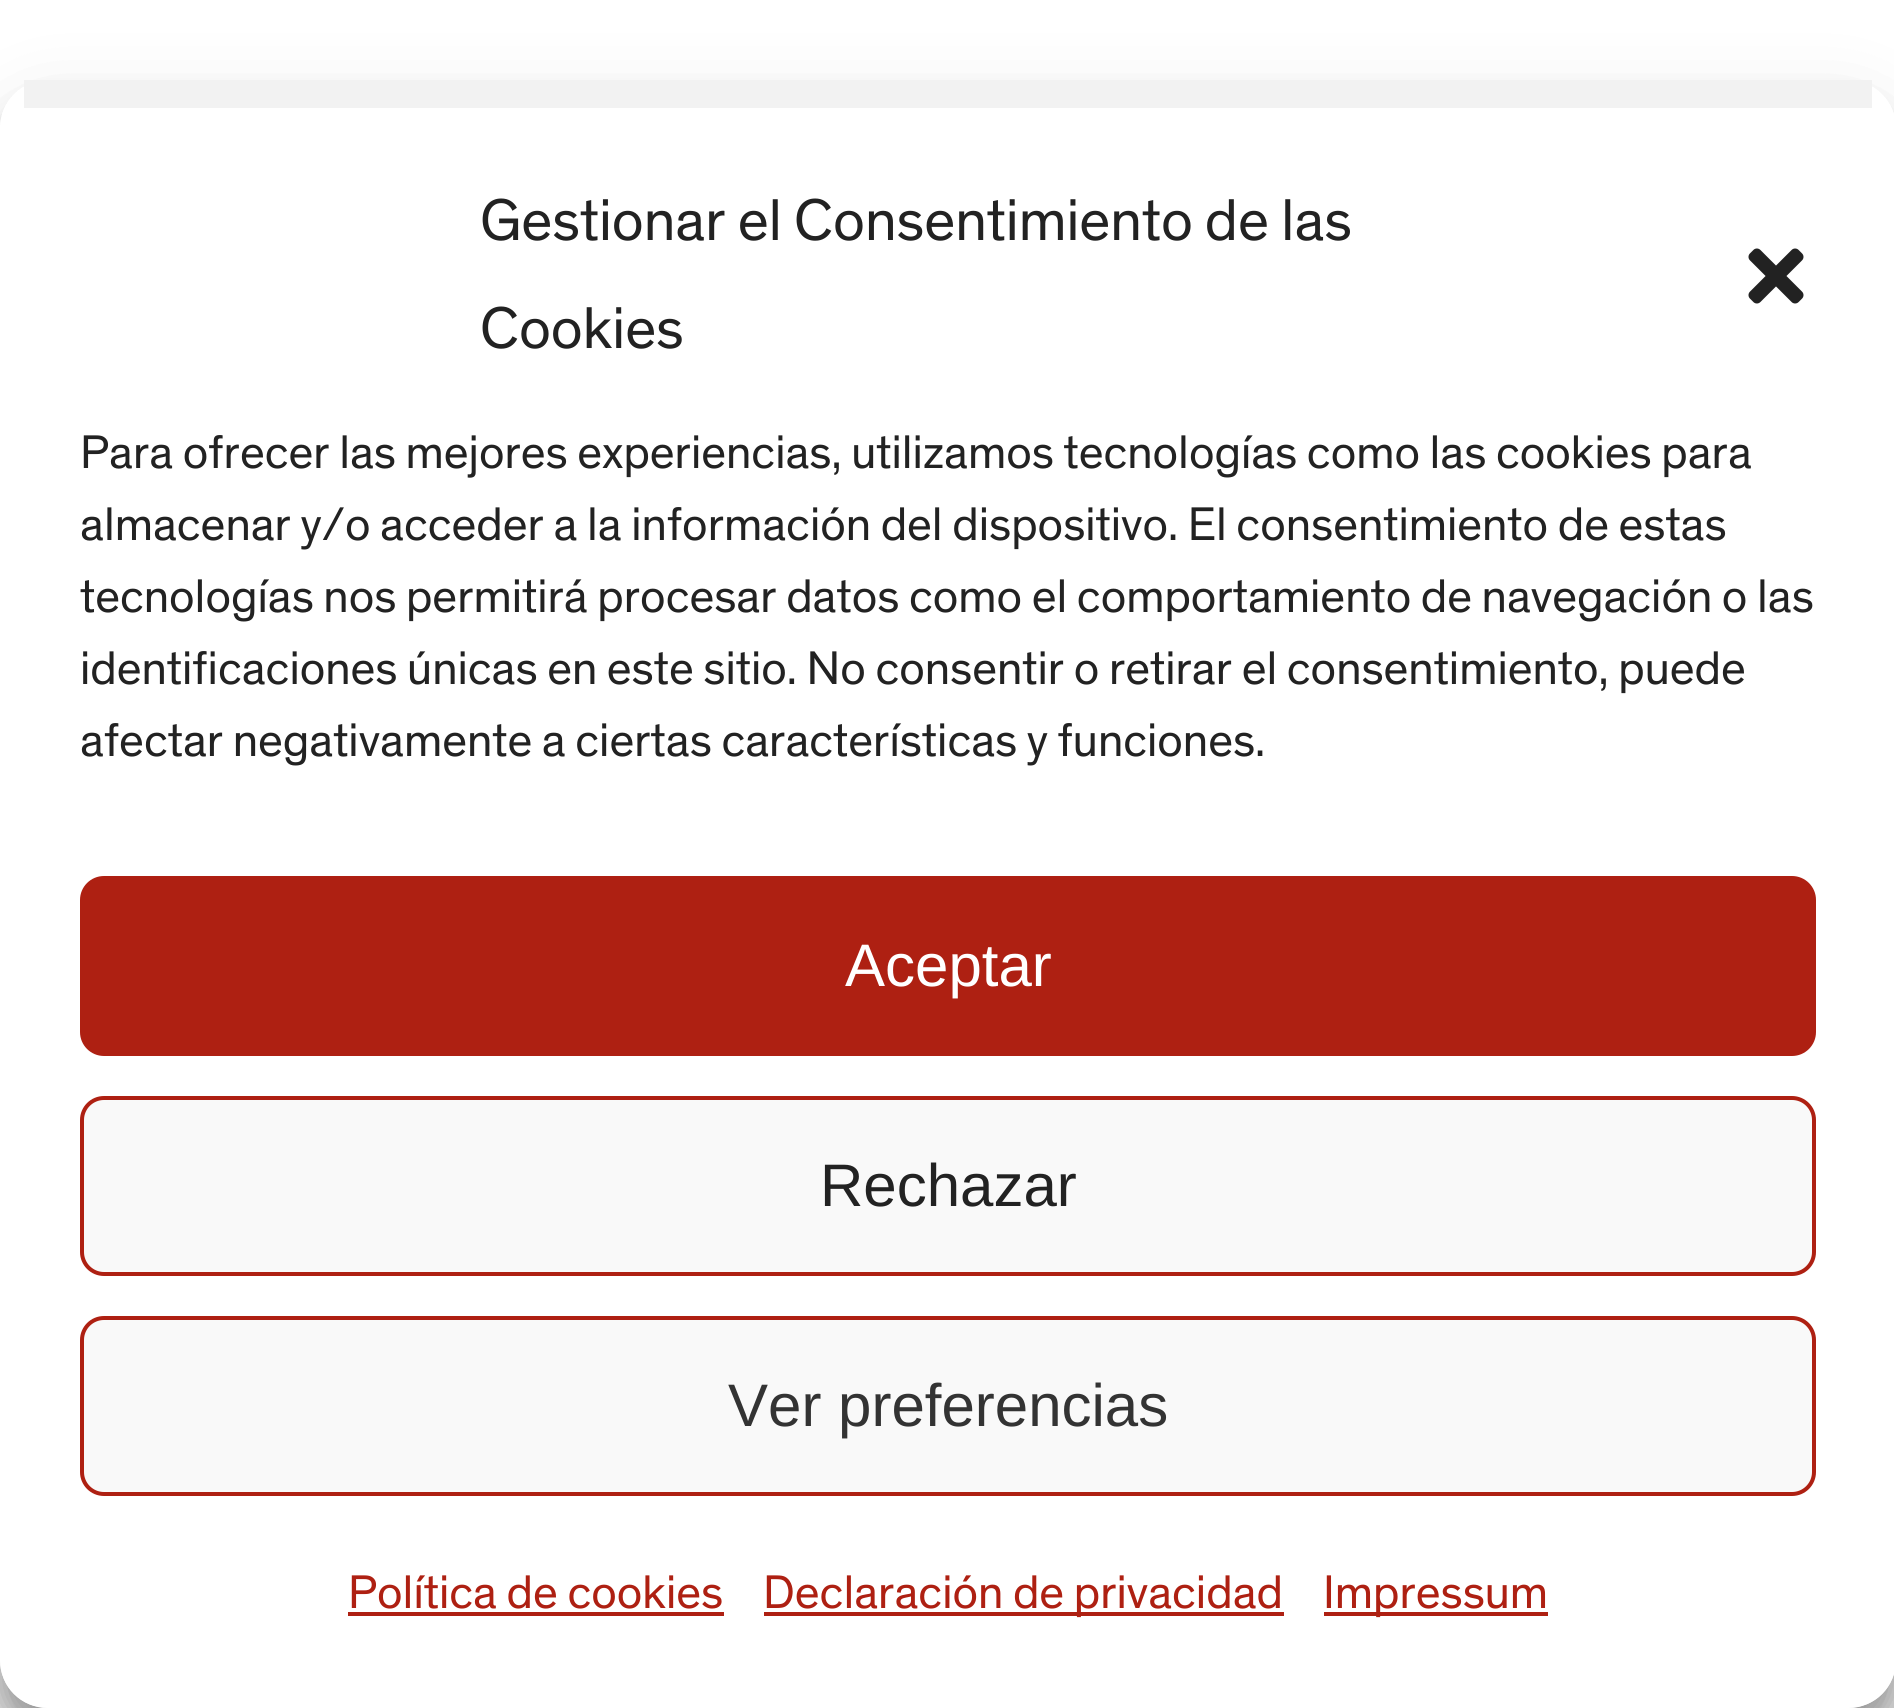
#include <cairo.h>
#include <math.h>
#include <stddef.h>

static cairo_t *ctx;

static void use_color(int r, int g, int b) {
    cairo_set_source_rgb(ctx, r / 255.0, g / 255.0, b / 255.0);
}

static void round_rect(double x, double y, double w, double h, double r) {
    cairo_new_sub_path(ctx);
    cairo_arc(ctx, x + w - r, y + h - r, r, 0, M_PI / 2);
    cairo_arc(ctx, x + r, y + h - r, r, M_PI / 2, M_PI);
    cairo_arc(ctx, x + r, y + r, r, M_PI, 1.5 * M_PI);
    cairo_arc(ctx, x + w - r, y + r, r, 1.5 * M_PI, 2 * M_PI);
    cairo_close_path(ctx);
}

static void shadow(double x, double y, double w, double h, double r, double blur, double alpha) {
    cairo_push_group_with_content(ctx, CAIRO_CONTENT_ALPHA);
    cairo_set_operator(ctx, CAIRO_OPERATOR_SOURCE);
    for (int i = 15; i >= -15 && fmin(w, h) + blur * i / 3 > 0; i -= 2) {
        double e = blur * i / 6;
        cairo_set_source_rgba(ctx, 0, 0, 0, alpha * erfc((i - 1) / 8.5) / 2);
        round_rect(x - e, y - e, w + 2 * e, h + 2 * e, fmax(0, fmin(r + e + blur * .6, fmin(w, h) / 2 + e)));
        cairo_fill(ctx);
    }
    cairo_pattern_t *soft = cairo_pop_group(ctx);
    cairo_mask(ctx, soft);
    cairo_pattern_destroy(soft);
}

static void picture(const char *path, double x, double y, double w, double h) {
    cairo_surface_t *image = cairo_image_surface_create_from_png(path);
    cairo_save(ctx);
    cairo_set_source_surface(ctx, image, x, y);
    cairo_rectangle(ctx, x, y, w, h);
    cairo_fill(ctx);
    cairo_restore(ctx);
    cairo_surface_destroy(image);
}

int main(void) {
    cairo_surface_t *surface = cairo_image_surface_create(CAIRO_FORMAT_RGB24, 1894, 1708);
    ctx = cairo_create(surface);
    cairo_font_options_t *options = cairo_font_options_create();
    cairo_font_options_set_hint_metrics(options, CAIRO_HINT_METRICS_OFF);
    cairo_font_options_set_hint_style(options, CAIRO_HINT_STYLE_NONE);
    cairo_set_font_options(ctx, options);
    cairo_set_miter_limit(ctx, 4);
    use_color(237, 237, 237);
    cairo_paint(ctx);
    use_color(255, 255, 255);
    cairo_rectangle(ctx, 0, 0, 1894, 128);
    cairo_fill(ctx);
    cairo_save(ctx);
    cairo_set_fill_rule(ctx, CAIRO_FILL_RULE_EVEN_ODD);
    cairo_new_path(ctx);
    cairo_move_to(ctx, 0, 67);
    cairo_line_to(ctx, 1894, 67);
    cairo_line_to(ctx, 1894, 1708);
    cairo_line_to(ctx, 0, 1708);
    cairo_close_path(ctx);
    cairo_move_to(ctx, 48, 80);
    cairo_line_to(ctx, 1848, 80);
    cairo_curve_to(ctx, 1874.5, 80, 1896, 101.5, 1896, 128);
    cairo_line_to(ctx, 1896, 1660);
    cairo_curve_to(ctx, 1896, 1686.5, 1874.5, 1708, 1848, 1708);
    cairo_line_to(ctx, 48, 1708);
    cairo_curve_to(ctx, 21.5, 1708, 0, 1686.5, 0, 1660);
    cairo_line_to(ctx, 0, 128);
    cairo_curve_to(ctx, 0, 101.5, 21.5, 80, 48, 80);
    cairo_close_path(ctx);
    cairo_clip(ctx);
    use_color(0, 0, 0);
    shadow(0, 104, 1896, 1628, 48, 12, 0.23);
    cairo_restore(ctx);
    cairo_save(ctx);
    cairo_set_fill_rule(ctx, CAIRO_FILL_RULE_EVEN_ODD);
    cairo_new_path(ctx);
    cairo_move_to(ctx, 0, 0);
    cairo_line_to(ctx, 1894, 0);
    cairo_line_to(ctx, 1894, 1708);
    cairo_line_to(ctx, 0, 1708);
    cairo_close_path(ctx);
    cairo_move_to(ctx, 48, 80);
    cairo_line_to(ctx, 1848, 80);
    cairo_curve_to(ctx, 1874.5, 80, 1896, 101.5, 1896, 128);
    cairo_line_to(ctx, 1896, 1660);
    cairo_curve_to(ctx, 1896, 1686.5, 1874.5, 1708, 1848, 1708);
    cairo_line_to(ctx, 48, 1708);
    cairo_curve_to(ctx, 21.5, 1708, 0, 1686.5, 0, 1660);
    cairo_line_to(ctx, 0, 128);
    cairo_curve_to(ctx, 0, 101.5, 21.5, 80, 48, 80);
    cairo_close_path(ctx);
    cairo_clip(ctx);
    use_color(0, 0, 0);
    shadow(0, 120, 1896, 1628, 48, 40, 0.19);
    cairo_restore(ctx);
    cairo_new_path(ctx);
    cairo_move_to(ctx, 48, 108);
    cairo_line_to(ctx, 1848, 108);
    cairo_curve_to(ctx, 1875, 108, 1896, 117, 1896, 128);
    cairo_line_to(ctx, 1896, 1660);
    cairo_curve_to(ctx, 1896, 1687, 1875, 1708, 1848, 1708);
    cairo_line_to(ctx, 48, 1708);
    cairo_curve_to(ctx, 21, 1708, 0, 1687, 0, 1660);
    cairo_line_to(ctx, 0, 128);
    cairo_curve_to(ctx, 0, 117, 21, 108, 48, 108);
    cairo_close_path(ctx);
    cairo_fill(ctx);
    use_color(242, 242, 242);
    cairo_rectangle(ctx, 24, 80, 1848, 28);
    cairo_fill(ctx);
    cairo_select_font_face(ctx, "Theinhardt", CAIRO_FONT_SLANT_NORMAL, CAIRO_FONT_WEIGHT_NORMAL);
    cairo_set_font_size(ctx, 60);
    use_color(34, 34, 34);
    cairo_move_to(ctx, 480, 240);
    cairo_show_text(ctx, "Gestionar el Consentimiento de las");
    cairo_move_to(ctx, 480, 348);
    cairo_show_text(ctx, "Cookies");
    picture("img1.png", 1748, 248, 56, 56);
    cairo_set_font_size(ctx, 48);
    cairo_move_to(ctx, 80, 468);
    cairo_show_text(ctx, "Para ofrecer las mejores experiencias, utilizamos tecnologías como las cookies para");
    cairo_move_to(ctx, 80, 540);
    cairo_show_text(ctx, "almacenar y/o acceder a la información del dispositivo. El consentimiento de estas");
    cairo_move_to(ctx, 80, 612);
    cairo_show_text(ctx, "tecnologías nos permitirá procesar datos como el comportamiento de navegación o las");
    cairo_move_to(ctx, 80, 684);
    cairo_show_text(ctx, "identificaciones únicas en este sitio. No consentir o retirar el consentimiento, puede");
    cairo_move_to(ctx, 80, 756);
    cairo_show_text(ctx, "afectar negativamente a ciertas características y funciones.");
    use_color(174, 32, 18);
    round_rect(82, 878, 1732, 176, 22);
    cairo_fill_preserve(ctx);
    cairo_set_line_width(ctx, 4);
    cairo_stroke(ctx);
    cairo_select_font_face(ctx, "Liberation Sans", CAIRO_FONT_SLANT_NORMAL, CAIRO_FONT_WEIGHT_NORMAL);
    cairo_set_font_size(ctx, 60);
    use_color(255, 255, 255);
    cairo_move_to(ctx, 845, 986);
    cairo_show_text(ctx, "Aceptar");
    use_color(249, 249, 249);
    round_rect(82, 1098, 1732, 176, 22);
    cairo_fill_preserve(ctx);
    use_color(174, 32, 18);
    cairo_stroke(ctx);
    use_color(34, 34, 34);
    cairo_move_to(ctx, 820, 1206);
    cairo_show_text(ctx, "Rechazar");
    use_color(249, 249, 249);
    round_rect(82, 1318, 1732, 176, 22);
    cairo_fill_preserve(ctx);
    use_color(174, 32, 18);
    cairo_stroke(ctx);
    use_color(51, 51, 51);
    cairo_move_to(ctx, 728, 1426);
    cairo_show_text(ctx, "Ver preferencias");
    cairo_select_font_face(ctx, "Theinhardt", CAIRO_FONT_SLANT_NORMAL, CAIRO_FONT_WEIGHT_NORMAL);
    cairo_set_font_size(ctx, 48);
    use_color(174, 32, 18);
    cairo_move_to(ctx, 348, 1608);
    cairo_show_text(ctx, "Política de cookies");
    cairo_rectangle(ctx, 348, 1612, 376, 4);
    cairo_fill(ctx);
    cairo_rectangle(ctx, 764, 1612, 520, 4);
    cairo_fill(ctx);
    cairo_move_to(ctx, 763, 1608);
    cairo_show_text(ctx, "Declaración de privacidad");
    cairo_rectangle(ctx, 1324, 1612, 224, 4);
    cairo_fill(ctx);
    cairo_move_to(ctx, 1323, 1608);
    cairo_show_text(ctx, "Impressum");
    cairo_surface_write_to_png(surface, "result.png");
    cairo_font_options_destroy(options);
    cairo_destroy(ctx);
    cairo_surface_destroy(surface);
    return 0;
}
